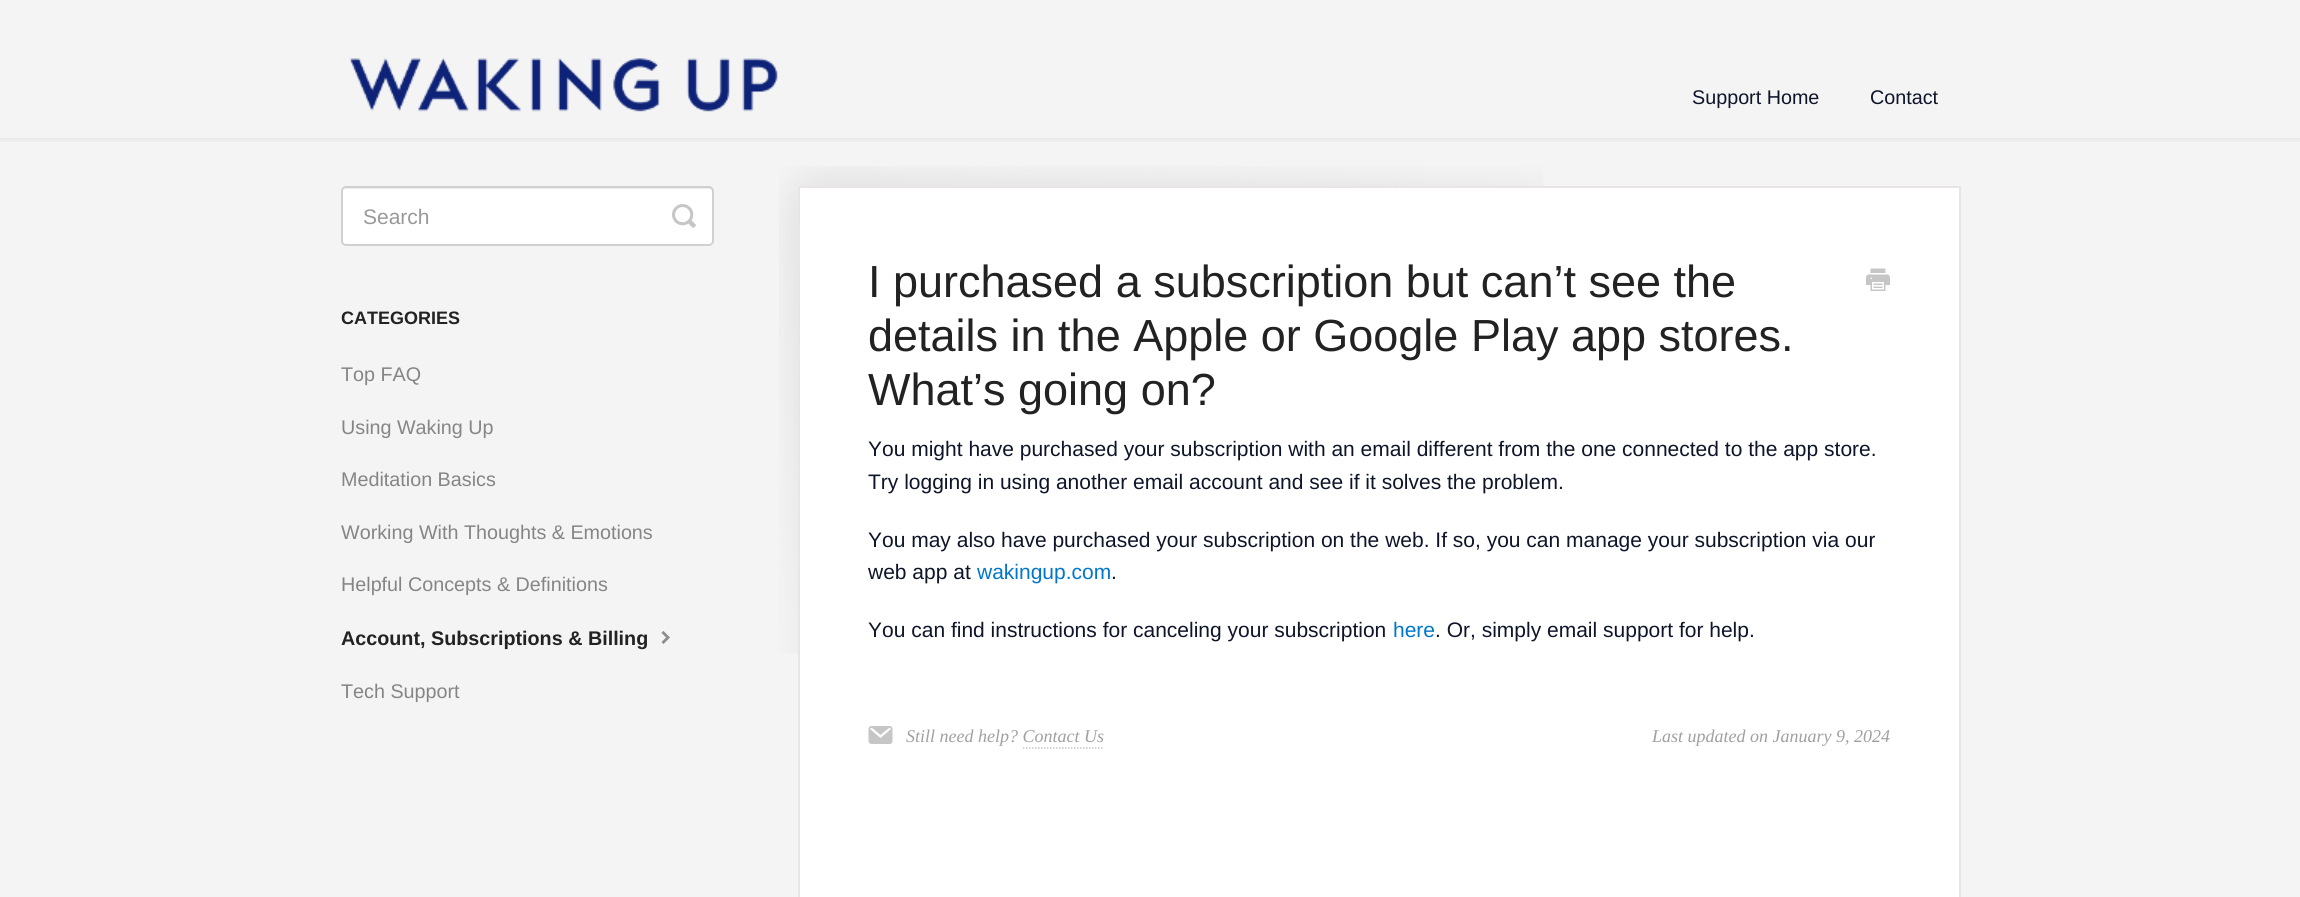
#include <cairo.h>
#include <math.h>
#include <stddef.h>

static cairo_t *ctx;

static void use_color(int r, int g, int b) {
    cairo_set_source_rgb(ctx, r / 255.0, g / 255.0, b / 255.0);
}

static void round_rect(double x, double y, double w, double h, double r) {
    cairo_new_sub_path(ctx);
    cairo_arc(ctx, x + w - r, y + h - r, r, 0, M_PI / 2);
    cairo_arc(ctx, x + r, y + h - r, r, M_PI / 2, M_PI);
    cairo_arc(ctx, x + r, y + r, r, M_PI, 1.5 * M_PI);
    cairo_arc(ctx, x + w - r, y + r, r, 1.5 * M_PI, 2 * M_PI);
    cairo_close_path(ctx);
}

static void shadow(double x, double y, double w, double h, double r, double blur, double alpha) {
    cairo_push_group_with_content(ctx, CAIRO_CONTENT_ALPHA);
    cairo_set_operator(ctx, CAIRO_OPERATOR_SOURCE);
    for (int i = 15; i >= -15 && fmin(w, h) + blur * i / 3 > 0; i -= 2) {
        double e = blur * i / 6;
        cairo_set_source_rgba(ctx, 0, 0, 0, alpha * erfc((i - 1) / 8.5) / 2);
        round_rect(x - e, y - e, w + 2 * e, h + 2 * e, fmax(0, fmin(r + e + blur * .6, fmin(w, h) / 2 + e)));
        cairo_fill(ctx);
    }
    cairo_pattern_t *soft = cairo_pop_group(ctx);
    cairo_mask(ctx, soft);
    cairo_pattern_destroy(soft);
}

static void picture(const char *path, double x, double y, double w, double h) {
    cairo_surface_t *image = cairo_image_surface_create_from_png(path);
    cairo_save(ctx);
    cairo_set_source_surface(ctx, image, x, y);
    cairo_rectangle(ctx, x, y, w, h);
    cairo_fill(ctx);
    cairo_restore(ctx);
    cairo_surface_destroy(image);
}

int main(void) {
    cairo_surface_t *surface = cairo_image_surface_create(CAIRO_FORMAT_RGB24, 2300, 897);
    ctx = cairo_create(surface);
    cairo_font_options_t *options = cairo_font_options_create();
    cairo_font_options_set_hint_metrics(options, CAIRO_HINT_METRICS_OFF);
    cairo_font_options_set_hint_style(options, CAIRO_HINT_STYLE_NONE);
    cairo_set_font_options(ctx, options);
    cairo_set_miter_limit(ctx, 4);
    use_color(244, 244, 244);
    cairo_paint(ctx);
    cairo_save(ctx);
    cairo_rectangle(ctx, 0, 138, 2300, 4);
    cairo_clip(ctx);
    use_color(0, 0, 0);
    shadow(0, 2, 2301, 138, 0, 3, 0.07);
    cairo_restore(ctx);
    picture("img1.png", 349, 58, 429, 54);
    cairo_select_font_face(ctx, "Liberation Sans", CAIRO_FONT_SLANT_NORMAL, CAIRO_FONT_WEIGHT_NORMAL);
    cairo_set_font_size(ctx, 19.75);
    use_color(14, 21, 41);
    cairo_move_to(ctx, 1692, 104);
    cairo_show_text(ctx, "Support Home");
    cairo_move_to(ctx, 1870, 104);
    cairo_show_text(ctx, "Contact");
    use_color(255, 255, 255);
    round_rect(341, 186, 373, 60, 5);
    cairo_fill(ctx);
    use_color(236, 236, 236);
    cairo_new_path(ctx);
    cairo_move_to(ctx, 345, 189);
    cairo_line_to(ctx, 710, 189);
    cairo_curve_to(ctx, 711, 189, 712, 190, 712, 192);
    cairo_line_to(ctx, 712, 244);
    cairo_curve_to(ctx, 713, 244, 713, 243, 713, 242);
    cairo_line_to(ctx, 713, 191);
    cairo_curve_to(ctx, 713, 189, 712, 188, 710, 188);
    cairo_line_to(ctx, 345, 188);
    cairo_curve_to(ctx, 343, 188, 342, 189, 342, 191);
    cairo_line_to(ctx, 342, 192);
    cairo_curve_to(ctx, 342, 190, 343, 189, 345, 189);
    cairo_close_path(ctx);
    cairo_fill(ctx);
    round_rect(342, 187, 371, 58, 4);
    use_color(208, 208, 208);
    cairo_stroke(ctx);
    cairo_set_font_size(ctx, 21);
    use_color(153, 153, 153);
    cairo_move_to(ctx, 363, 224);
    cairo_show_text(ctx, "Search");
    picture("img2.png", 672, 204, 24, 24);
    cairo_select_font_face(ctx, "Liberation Sans", CAIRO_FONT_SLANT_NORMAL, CAIRO_FONT_WEIGHT_BOLD);
    cairo_set_font_size(ctx, 18);
    use_color(34, 34, 34);
    cairo_move_to(ctx, 341, 324);
    cairo_show_text(ctx, "CATEGORIES");
    cairo_select_font_face(ctx, "Liberation Sans", CAIRO_FONT_SLANT_NORMAL, CAIRO_FONT_WEIGHT_NORMAL);
    cairo_set_font_size(ctx, 19.75);
    use_color(133, 133, 133);
    cairo_move_to(ctx, 341, 381);
    cairo_show_text(ctx, "Top FAQ");
    cairo_move_to(ctx, 341, 434);
    cairo_show_text(ctx, "Using Waking Up");
    cairo_move_to(ctx, 341, 486);
    cairo_show_text(ctx, "Meditation Basics");
    cairo_move_to(ctx, 341, 539);
    cairo_show_text(ctx, "Working With Thoughts & Emotions");
    cairo_move_to(ctx, 341, 591);
    cairo_show_text(ctx, "Helpful Concepts & Definitions");
    cairo_select_font_face(ctx, "Liberation Sans", CAIRO_FONT_SLANT_NORMAL, CAIRO_FONT_WEIGHT_BOLD);
    use_color(34, 34, 34);
    cairo_move_to(ctx, 341, 645);
    cairo_show_text(ctx, "Account, Subscriptions & Billing");
    picture("img3.png", 661, 631, 9, 13);
    cairo_select_font_face(ctx, "Liberation Sans", CAIRO_FONT_SLANT_NORMAL, CAIRO_FONT_WEIGHT_NORMAL);
    use_color(133, 133, 133);
    cairo_move_to(ctx, 341, 698);
    cairo_show_text(ctx, "Tech Support");
    picture("img4.png", 779, 166, 764, 487);
    use_color(255, 255, 255);
    cairo_rectangle(ctx, 799, 187, 1161, 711);
    cairo_fill_preserve(ctx);
    use_color(233, 229, 229);
    cairo_stroke(ctx);
    cairo_set_font_size(ctx, 45);
    use_color(34, 34, 34);
    cairo_move_to(ctx, 868, 297);
    cairo_show_text(ctx, "I purchased a subscription but can’t see the");
    cairo_move_to(ctx, 868, 351);
    cairo_show_text(ctx, "details in the Apple or Google Play app stores.");
    cairo_move_to(ctx, 868, 405);
    cairo_show_text(ctx, "What’s going on?");
    picture("img5.png", 1866, 268, 24, 23);
    cairo_set_font_size(ctx, 21);
    use_color(14, 21, 41);
    cairo_move_to(ctx, 868, 456);
    cairo_show_text(ctx, "You might have purchased your subscription with an email different from the one connected to the app store.");
    cairo_move_to(ctx, 868, 489);
    cairo_show_text(ctx, "Try logging in using another email account and see if it solves the problem.");
    cairo_move_to(ctx, 868, 547);
    cairo_show_text(ctx, "You may also have purchased your subscription on the web. If so, you can manage your subscription via our");
    cairo_move_to(ctx, 868, 579);
    cairo_show_text(ctx, "web app at");
    use_color(0, 119, 204);
    cairo_move_to(ctx, 977, 579);
    cairo_show_text(ctx, "wakingup.com");
    use_color(14, 21, 41);
    cairo_move_to(ctx, 1111, 579);
    cairo_show_text(ctx, ".");
    cairo_move_to(ctx, 868, 637);
    cairo_show_text(ctx, "You can find instructions for canceling your subscription");
    use_color(0, 119, 204);
    cairo_move_to(ctx, 1393, 637);
    cairo_show_text(ctx, "here");
    use_color(14, 21, 41);
    cairo_move_to(ctx, 1435, 637);
    cairo_show_text(ctx, ". Or, simply email support for help.");
    picture("img6.png", 868, 726, 25, 18);
    cairo_select_font_face(ctx, "Liberation Serif", CAIRO_FONT_SLANT_ITALIC, CAIRO_FONT_WEIGHT_NORMAL);
    cairo_set_font_size(ctx, 18);
    use_color(160, 160, 160);
    cairo_move_to(ctx, 906, 742);
    cairo_show_text(ctx, "Still need help? Contact Us");
    cairo_new_path(ctx);
    cairo_move_to(ctx, 1023, 748);
    cairo_line_to(ctx, 1104, 748);
    use_color(197, 197, 197);
    cairo_set_line_width(ctx, 1.5);
    cairo_set_dash(ctx, (double[]){1.5, 1.5}, 2, 0);
    cairo_stroke(ctx);
    use_color(160, 160, 160);
    cairo_move_to(ctx, 1652, 742);
    cairo_show_text(ctx, "Last updated on January 9, 2024");
    cairo_surface_write_to_png(surface, "result.png");
    cairo_font_options_destroy(options);
    cairo_destroy(ctx);
    cairo_surface_destroy(surface);
    return 0;
}
